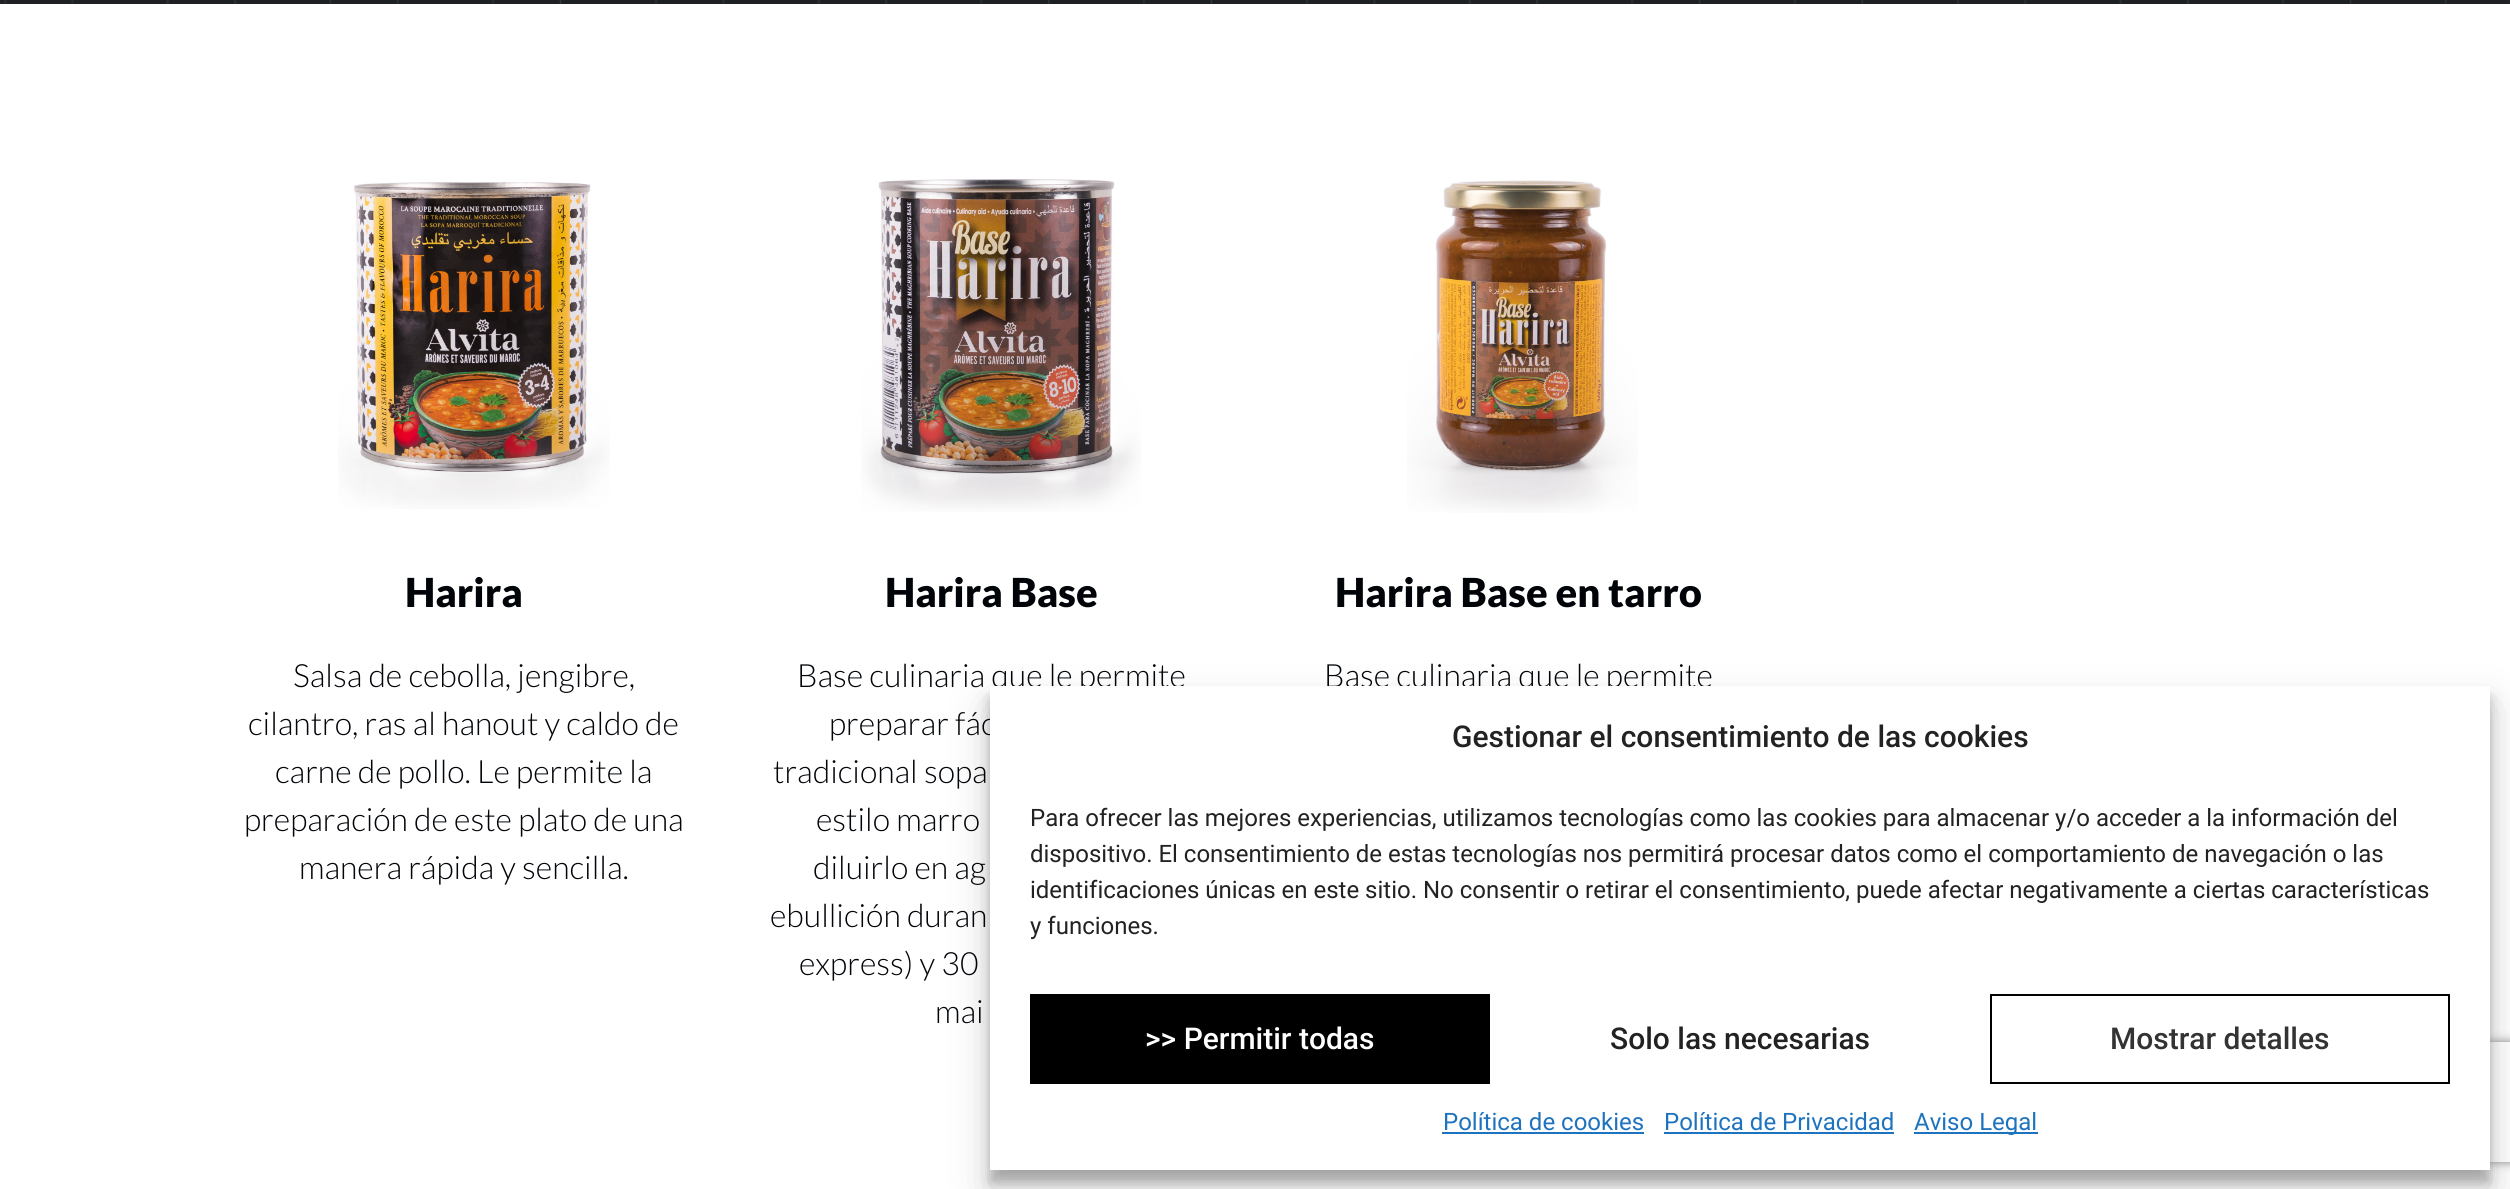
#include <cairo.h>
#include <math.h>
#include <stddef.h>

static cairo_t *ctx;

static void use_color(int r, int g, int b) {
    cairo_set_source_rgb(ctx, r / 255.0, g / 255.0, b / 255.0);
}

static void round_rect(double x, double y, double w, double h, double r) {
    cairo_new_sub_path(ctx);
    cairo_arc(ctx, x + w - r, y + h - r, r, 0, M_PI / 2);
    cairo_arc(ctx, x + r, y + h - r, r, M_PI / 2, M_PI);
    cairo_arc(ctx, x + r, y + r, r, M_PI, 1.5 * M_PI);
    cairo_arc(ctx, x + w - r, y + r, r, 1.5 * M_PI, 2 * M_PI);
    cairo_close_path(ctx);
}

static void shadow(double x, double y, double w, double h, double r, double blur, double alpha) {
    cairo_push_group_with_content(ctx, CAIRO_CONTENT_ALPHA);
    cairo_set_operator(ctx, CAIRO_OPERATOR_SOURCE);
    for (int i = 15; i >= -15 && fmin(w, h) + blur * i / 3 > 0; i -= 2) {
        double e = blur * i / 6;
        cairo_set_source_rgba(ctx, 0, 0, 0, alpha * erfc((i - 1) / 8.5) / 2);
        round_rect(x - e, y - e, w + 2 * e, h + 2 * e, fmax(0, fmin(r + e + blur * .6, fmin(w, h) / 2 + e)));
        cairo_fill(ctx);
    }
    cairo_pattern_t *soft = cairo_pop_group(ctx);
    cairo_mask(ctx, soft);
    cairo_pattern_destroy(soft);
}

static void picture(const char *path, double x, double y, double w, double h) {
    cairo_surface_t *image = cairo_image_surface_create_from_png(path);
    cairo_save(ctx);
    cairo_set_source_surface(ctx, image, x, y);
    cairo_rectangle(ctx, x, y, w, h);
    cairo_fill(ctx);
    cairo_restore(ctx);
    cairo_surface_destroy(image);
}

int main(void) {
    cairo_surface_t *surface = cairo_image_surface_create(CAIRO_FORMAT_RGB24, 2510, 1189);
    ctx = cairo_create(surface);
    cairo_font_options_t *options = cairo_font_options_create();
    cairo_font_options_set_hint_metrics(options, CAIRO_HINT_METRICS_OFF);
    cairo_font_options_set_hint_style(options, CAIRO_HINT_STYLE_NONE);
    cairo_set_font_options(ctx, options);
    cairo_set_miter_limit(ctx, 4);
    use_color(255, 255, 255);
    cairo_paint(ctx);
    use_color(36, 36, 40);
    cairo_rectangle(ctx, 0, 0, 2510, 4);
    cairo_fill(ctx);
    picture("img1.png", 1, 0, 2508, 4);
    picture("img2.png", 338, 182, 272, 327);
    cairo_select_font_face(ctx, "Lato Black", CAIRO_FONT_SLANT_NORMAL, CAIRO_FONT_WEIGHT_NORMAL);
    cairo_set_font_size(ctx, 40);
    use_color(0, 3, 7);
    cairo_move_to(ctx, 405, 607);
    cairo_show_text(ctx, "Harira");
    cairo_select_font_face(ctx, "Lato Light", CAIRO_FONT_SLANT_NORMAL, CAIRO_FONT_WEIGHT_NORMAL);
    cairo_set_font_size(ctx, 32);
    cairo_move_to(ctx, 293, 687);
    cairo_show_text(ctx, "Salsa de cebolla, jengibre,");
    cairo_move_to(ctx, 248, 735);
    cairo_show_text(ctx, "cilantro, ras al hanout y caldo de");
    cairo_move_to(ctx, 275, 783);
    cairo_show_text(ctx, "carne de pollo. Le permite la");
    cairo_move_to(ctx, 244, 831);
    cairo_show_text(ctx, "preparación de este plato de una");
    cairo_move_to(ctx, 299, 879);
    cairo_show_text(ctx, "manera rápida y sencilla.");
    picture("img3.png", 861, 179, 280, 333);
    cairo_select_font_face(ctx, "Lato Black", CAIRO_FONT_SLANT_NORMAL, CAIRO_FONT_WEIGHT_NORMAL);
    cairo_set_font_size(ctx, 40);
    cairo_move_to(ctx, 885, 607);
    cairo_show_text(ctx, "Harira Base");
    cairo_select_font_face(ctx, "Lato Light", CAIRO_FONT_SLANT_NORMAL, CAIRO_FONT_WEIGHT_NORMAL);
    cairo_set_font_size(ctx, 32);
    cairo_move_to(ctx, 797, 687);
    cairo_show_text(ctx, "Base culinaria que le permite");
    cairo_move_to(ctx, 829, 735);
    cairo_show_text(ctx, "preparar fác");
    cairo_move_to(ctx, 773, 783);
    cairo_show_text(ctx, "tradicional sopa");
    cairo_move_to(ctx, 816, 831);
    cairo_show_text(ctx, "estilo marro");
    cairo_move_to(ctx, 813, 879);
    cairo_show_text(ctx, "diluirlo en ag");
    cairo_move_to(ctx, 770, 927);
    cairo_show_text(ctx, "ebullición duran");
    cairo_move_to(ctx, 799, 975);
    cairo_show_text(ctx, "express) y 30");
    cairo_move_to(ctx, 935, 1023);
    cairo_show_text(ctx, "mai");
    picture("img4.png", 1407, 180, 231, 333);
    cairo_select_font_face(ctx, "Lato Black", CAIRO_FONT_SLANT_NORMAL, CAIRO_FONT_WEIGHT_NORMAL);
    cairo_set_font_size(ctx, 40);
    cairo_move_to(ctx, 1335, 607);
    cairo_show_text(ctx, "Harira Base en tarro");
    cairo_select_font_face(ctx, "Lato Light", CAIRO_FONT_SLANT_NORMAL, CAIRO_FONT_WEIGHT_NORMAL);
    cairo_set_font_size(ctx, 32);
    cairo_move_to(ctx, 1324, 687);
    cairo_show_text(ctx, "Base culinaria que le permite");
    use_color(0, 0, 0);
    shadow(990, 698, 1500, 484, 0, 6, 0.23);
    shadow(990, 706, 1500, 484, 0, 20, 0.19);
    cairo_save(ctx);
    cairo_set_fill_rule(ctx, CAIRO_FILL_RULE_EVEN_ODD);
    cairo_new_path(ctx);
    cairo_move_to(ctx, 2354, 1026);
    cairo_line_to(ctx, 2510, 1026);
    cairo_line_to(ctx, 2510, 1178);
    cairo_line_to(ctx, 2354, 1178);
    cairo_close_path(ctx);
    cairo_move_to(ctx, 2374, 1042);
    cairo_line_to(ctx, 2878, 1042);
    cairo_curve_to(ctx, 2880, 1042, 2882, 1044, 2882, 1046);
    cairo_line_to(ctx, 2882, 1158);
    cairo_curve_to(ctx, 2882, 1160, 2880, 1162, 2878, 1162);
    cairo_line_to(ctx, 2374, 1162);
    cairo_curve_to(ctx, 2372, 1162, 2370, 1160, 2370, 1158);
    cairo_line_to(ctx, 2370, 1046);
    cairo_curve_to(ctx, 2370, 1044, 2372, 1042, 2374, 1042);
    cairo_close_path(ctx);
    cairo_clip(ctx);
    use_color(128, 128, 128);
    shadow(2370, 1042, 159, 120, 4, 5, 1);
    cairo_restore(ctx);
    use_color(255, 255, 255);
    cairo_rectangle(ctx, 990, 686, 1500, 484);
    cairo_fill(ctx);
    cairo_select_font_face(ctx, "Roboto Medium", CAIRO_FONT_SLANT_NORMAL, CAIRO_FONT_WEIGHT_NORMAL);
    cairo_set_font_size(ctx, 30);
    use_color(34, 34, 34);
    cairo_move_to(ctx, 1452, 747);
    cairo_show_text(ctx, "Gestionar el consentimiento de las cookies");
    cairo_select_font_face(ctx, "Roboto", CAIRO_FONT_SLANT_NORMAL, CAIRO_FONT_WEIGHT_NORMAL);
    cairo_set_font_size(ctx, 24);
    cairo_move_to(ctx, 1030, 826);
    cairo_show_text(ctx, "Para ofrecer las mejores experiencias, utilizamos tecnologías como las cookies para almacenar y/o acceder a la información del");
    cairo_move_to(ctx, 1030, 862);
    cairo_show_text(ctx, "dispositivo. El consentimiento de estas tecnologías nos permitirá procesar datos como el comportamiento de navegación o las");
    cairo_move_to(ctx, 1030, 898);
    cairo_show_text(ctx, "identificaciones únicas en este sitio. No consentir o retirar el consentimiento, puede afectar negativamente a ciertas características");
    cairo_move_to(ctx, 1030, 934);
    cairo_show_text(ctx, "y funciones.");
    use_color(0, 0, 0);
    cairo_rectangle(ctx, 1030, 994, 460, 90);
    cairo_fill(ctx);
    cairo_select_font_face(ctx, "Roboto Medium", CAIRO_FONT_SLANT_NORMAL, CAIRO_FONT_WEIGHT_NORMAL);
    cairo_set_font_size(ctx, 30);
    use_color(255, 255, 255);
    cairo_move_to(ctx, 1145, 1049);
    cairo_show_text(ctx, ">> Permitir todas");
    use_color(34, 34, 34);
    cairo_move_to(ctx, 1610, 1049);
    cairo_show_text(ctx, "Solo las necesarias");
    cairo_rectangle(ctx, 1991, 995, 458, 88);
    use_color(0, 0, 0);
    cairo_stroke(ctx);
    use_color(51, 51, 51);
    cairo_move_to(ctx, 2110, 1049);
    cairo_show_text(ctx, "Mostrar detalles");
    cairo_select_font_face(ctx, "Roboto", CAIRO_FONT_SLANT_NORMAL, CAIRO_FONT_WEIGHT_NORMAL);
    cairo_set_font_size(ctx, 24);
    use_color(30, 115, 190);
    cairo_move_to(ctx, 1443, 1130);
    cairo_show_text(ctx, "Política de cookies");
    cairo_rectangle(ctx, 1442, 1132, 202, 2);
    cairo_fill(ctx);
    cairo_move_to(ctx, 1664, 1130);
    cairo_show_text(ctx, "Política de Privacidad");
    cairo_rectangle(ctx, 1664, 1132, 230, 2);
    cairo_fill(ctx);
    cairo_rectangle(ctx, 1914, 1132, 124, 2);
    cairo_fill(ctx);
    cairo_move_to(ctx, 1914, 1130);
    cairo_show_text(ctx, "Aviso Legal");
    cairo_surface_write_to_png(surface, "result.png");
    cairo_font_options_destroy(options);
    cairo_destroy(ctx);
    cairo_surface_destroy(surface);
    return 0;
}
